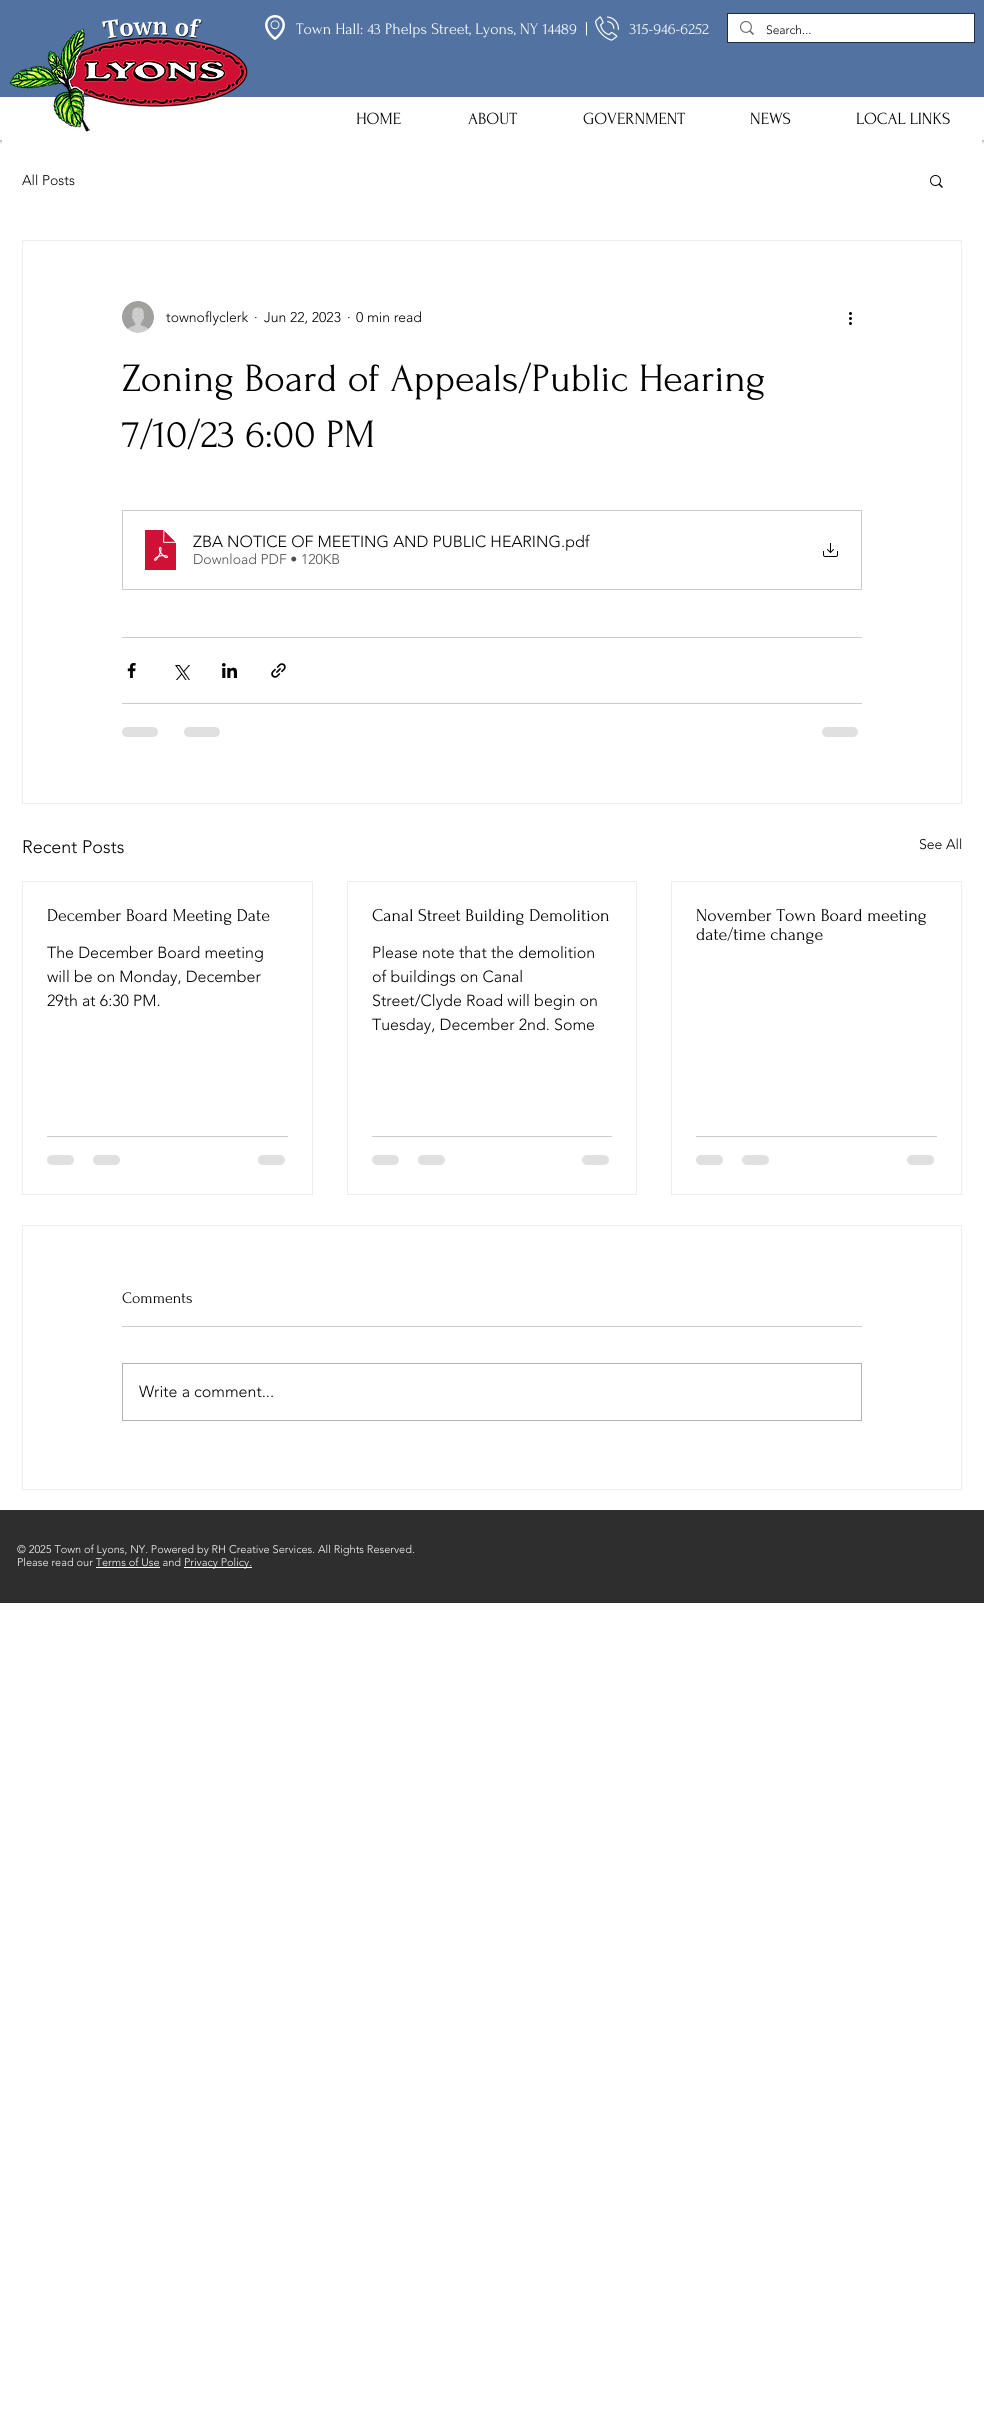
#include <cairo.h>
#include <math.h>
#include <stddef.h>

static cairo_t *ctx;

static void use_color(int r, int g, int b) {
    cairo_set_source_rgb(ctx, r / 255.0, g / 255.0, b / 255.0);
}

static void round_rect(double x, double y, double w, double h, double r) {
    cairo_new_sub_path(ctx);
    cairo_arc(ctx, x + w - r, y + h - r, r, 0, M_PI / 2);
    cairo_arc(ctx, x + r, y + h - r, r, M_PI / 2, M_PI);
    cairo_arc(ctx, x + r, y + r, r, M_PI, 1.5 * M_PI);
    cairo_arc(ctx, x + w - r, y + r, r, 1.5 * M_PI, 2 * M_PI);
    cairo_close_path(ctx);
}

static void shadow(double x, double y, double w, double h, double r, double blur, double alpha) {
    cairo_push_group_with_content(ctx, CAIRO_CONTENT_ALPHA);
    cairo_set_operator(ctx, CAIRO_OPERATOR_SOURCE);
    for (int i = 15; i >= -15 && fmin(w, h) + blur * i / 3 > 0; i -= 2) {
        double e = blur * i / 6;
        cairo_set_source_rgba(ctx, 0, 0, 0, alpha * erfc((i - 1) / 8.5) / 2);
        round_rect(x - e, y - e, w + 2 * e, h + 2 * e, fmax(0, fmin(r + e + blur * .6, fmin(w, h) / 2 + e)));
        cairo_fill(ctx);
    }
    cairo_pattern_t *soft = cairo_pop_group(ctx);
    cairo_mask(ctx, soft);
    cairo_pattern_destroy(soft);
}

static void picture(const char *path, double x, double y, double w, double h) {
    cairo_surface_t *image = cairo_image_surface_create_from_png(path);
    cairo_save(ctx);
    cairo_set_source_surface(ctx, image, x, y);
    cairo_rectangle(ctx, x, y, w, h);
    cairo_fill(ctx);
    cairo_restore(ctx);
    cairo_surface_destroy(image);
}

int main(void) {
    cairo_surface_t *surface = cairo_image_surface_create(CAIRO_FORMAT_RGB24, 984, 2413);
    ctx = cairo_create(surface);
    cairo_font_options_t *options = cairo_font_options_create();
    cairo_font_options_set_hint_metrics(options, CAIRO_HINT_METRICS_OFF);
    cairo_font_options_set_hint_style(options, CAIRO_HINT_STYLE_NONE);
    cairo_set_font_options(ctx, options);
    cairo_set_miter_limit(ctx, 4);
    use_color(255, 255, 255);
    cairo_paint(ctx);
    cairo_save(ctx);
    cairo_rectangle(ctx, 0, 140, 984, 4);
    cairo_clip(ctx);
    use_color(0, 0, 0);
    shadow(0, 0, 984, 140, 0, 2.5, 0.7);
    cairo_restore(ctx);
    use_color(82, 115, 162);
    cairo_rectangle(ctx, 0, 0, 984, 97);
    cairo_fill(ctx);
    picture("img1.png", 9, 18, 239, 114);
    picture("img2.png", 265, 15, 20, 25);
    picture("img3.png", 595, 16, 24, 25);
    cairo_select_font_face(ctx, "Forum", CAIRO_FONT_SLANT_NORMAL, CAIRO_FONT_WEIGHT_NORMAL);
    cairo_set_font_size(ctx, 16);
    use_color(255, 255, 255);
    cairo_move_to(ctx, 296, 34);
    cairo_show_text(ctx, "Town Hall: 43 Phelps Street, Lyons, NY 14489  |          315-946-6252");
    cairo_rectangle(ctx, 727.5, 13.5, 247, 29);
    use_color(33, 46, 65);
    cairo_set_line_width(ctx, 1);
    cairo_stroke(ctx);
    use_color(255, 255, 255);
    cairo_rectangle(ctx, 728, 14, 246, 28);
    cairo_fill(ctx);
    picture("img4.png", 740, 21, 14, 14);
    cairo_select_font_face(ctx, "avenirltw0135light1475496 Light", CAIRO_FONT_SLANT_NORMAL, CAIRO_FONT_WEIGHT_NORMAL);
    cairo_set_font_size(ctx, 12);
    use_color(0, 0, 0);
    cairo_move_to(ctx, 766, 34);
    cairo_show_text(ctx, "Search...");
    cairo_select_font_face(ctx, "Forum", CAIRO_FONT_SLANT_NORMAL, CAIRO_FONT_WEIGHT_NORMAL);
    cairo_set_font_size(ctx, 17);
    cairo_move_to(ctx, 356, 124);
    cairo_show_text(ctx, "HOME");
    cairo_move_to(ctx, 468, 124);
    cairo_show_text(ctx, "ABOUT");
    cairo_move_to(ctx, 583, 124);
    cairo_show_text(ctx, "GOVERNMENT");
    cairo_move_to(ctx, 750, 124);
    cairo_show_text(ctx, "NEWS");
    cairo_move_to(ctx, 856, 124);
    cairo_show_text(ctx, "LOCAL LINKS");
    use_color(255, 255, 255);
    cairo_rectangle(ctx, 2, 140, 980, 5);
    cairo_fill(ctx);
    cairo_select_font_face(ctx, "avenirltw0135light1475496 Light", CAIRO_FONT_SLANT_NORMAL, CAIRO_FONT_WEIGHT_NORMAL);
    cairo_set_font_size(ctx, 14);
    use_color(0, 0, 0);
    cairo_move_to(ctx, 22, 185);
    cairo_show_text(ctx, "All Posts");
    picture("img5.png", 930, 175, 13, 13);
    cairo_rectangle(ctx, 22.5, 240.5, 939, 563);
    use_color(238, 236, 236);
    cairo_stroke(ctx);
    picture("img6.png", 122, 301, 32, 32);
    use_color(0, 0, 0);
    cairo_move_to(ctx, 166, 322);
    cairo_show_text(ctx, "townoflyclerk");
    cairo_move_to(ctx, 254, 322);
    cairo_show_text(ctx, "·");
    cairo_move_to(ctx, 264, 322);
    cairo_show_text(ctx, "Jun 22, 2023");
    cairo_move_to(ctx, 347, 322);
    cairo_show_text(ctx, "·");
    cairo_move_to(ctx, 356, 322);
    cairo_show_text(ctx, "0 min read");
    picture("img7.png", 849, 312, 3, 13);
    cairo_select_font_face(ctx, "Forum", CAIRO_FONT_SLANT_NORMAL, CAIRO_FONT_WEIGHT_NORMAL);
    cairo_set_font_size(ctx, 40);
    cairo_move_to(ctx, 122, 391);
    cairo_show_text(ctx, "Zoning Board of Appeals/Public Hearing");
    cairo_move_to(ctx, 122, 447);
    cairo_show_text(ctx, "7/10/23 6:00 PM");
    cairo_rectangle(ctx, 122.5, 510.5, 739, 79);
    use_color(204, 204, 204);
    cairo_stroke(ctx);
    picture("img8.png", 144, 529, 33, 42);
    cairo_select_font_face(ctx, "avenirltw0135light1475496 Light", CAIRO_FONT_SLANT_NORMAL, CAIRO_FONT_WEIGHT_NORMAL);
    cairo_set_font_size(ctx, 16);
    use_color(0, 0, 0);
    cairo_move_to(ctx, 193, 547);
    cairo_show_text(ctx, "ZBA NOTICE OF MEETING AND PUBLIC HEARING");
    cairo_move_to(ctx, 561, 547);
    cairo_show_text(ctx, ".pdf");
    cairo_set_font_size(ctx, 14);
    use_color(77, 77, 77);
    cairo_move_to(ctx, 193, 564);
    cairo_show_text(ctx, "Download PDF • 120KB");
    picture("img9.png", 823, 543, 15, 14);
    use_color(204, 204, 204);
    cairo_rectangle(ctx, 122, 637, 740, 1);
    cairo_fill(ctx);
    picture("img10.png", 127, 663, 9, 15);
    picture("img11.png", 175, 665, 15, 15);
    picture("img12.png", 222, 663, 15, 15);
    picture("img13.png", 271, 663, 15, 15);
    cairo_rectangle(ctx, 122, 703, 740, 1);
    cairo_fill(ctx);
    use_color(224, 224, 224);
    round_rect(122, 727, 36, 10, 5);
    cairo_fill(ctx);
    round_rect(184, 727, 36, 10, 5);
    cairo_fill(ctx);
    round_rect(822, 727, 36, 10, 5);
    cairo_fill(ctx);
    cairo_set_font_size(ctx, 18);
    use_color(0, 0, 0);
    cairo_move_to(ctx, 22, 853);
    cairo_show_text(ctx, "Recent Posts");
    cairo_set_font_size(ctx, 14);
    cairo_move_to(ctx, 919, 849);
    cairo_show_text(ctx, "See All");
    cairo_rectangle(ctx, 22.5, 881.5, 290, 313);
    use_color(238, 236, 236);
    cairo_stroke(ctx);
    cairo_select_font_face(ctx, "Forum", CAIRO_FONT_SLANT_NORMAL, CAIRO_FONT_WEIGHT_NORMAL);
    cairo_set_font_size(ctx, 18);
    use_color(0, 0, 0);
    cairo_move_to(ctx, 47, 921);
    cairo_show_text(ctx, "December Board Meeting Date");
    cairo_select_font_face(ctx, "avenirltw0135light1475496 Light", CAIRO_FONT_SLANT_NORMAL, CAIRO_FONT_WEIGHT_NORMAL);
    cairo_set_font_size(ctx, 16);
    cairo_move_to(ctx, 47, 958);
    cairo_show_text(ctx, "The December Board meeting");
    cairo_move_to(ctx, 47, 982);
    cairo_show_text(ctx, "will be on Monday, December");
    cairo_move_to(ctx, 47, 1006);
    cairo_show_text(ctx, "29th at 6:30 PM.");
    use_color(204, 204, 204);
    cairo_rectangle(ctx, 47, 1136, 241, 1);
    cairo_fill(ctx);
    use_color(224, 224, 224);
    round_rect(47, 1155, 27, 10, 5);
    cairo_fill(ctx);
    round_rect(93, 1155, 27, 10, 5);
    cairo_fill(ctx);
    round_rect(258, 1155, 27, 10, 5);
    cairo_fill(ctx);
    cairo_rectangle(ctx, 347.5, 881.5, 289, 313);
    use_color(238, 236, 236);
    cairo_stroke(ctx);
    cairo_select_font_face(ctx, "Forum", CAIRO_FONT_SLANT_NORMAL, CAIRO_FONT_WEIGHT_NORMAL);
    cairo_set_font_size(ctx, 18);
    use_color(0, 0, 0);
    cairo_move_to(ctx, 372, 921);
    cairo_show_text(ctx, "Canal Street Building Demolition");
    cairo_select_font_face(ctx, "avenirltw0135light1475496 Light", CAIRO_FONT_SLANT_NORMAL, CAIRO_FONT_WEIGHT_NORMAL);
    cairo_set_font_size(ctx, 16);
    cairo_move_to(ctx, 372, 958);
    cairo_show_text(ctx, "Please note that the demolition");
    cairo_move_to(ctx, 372, 982);
    cairo_show_text(ctx, "of buildings on Canal");
    cairo_move_to(ctx, 372, 1006);
    cairo_show_text(ctx, "Street/Clyde Road will begin on");
    cairo_move_to(ctx, 372, 1030);
    cairo_show_text(ctx, "Tuesday, December 2nd. Some");
    use_color(204, 204, 204);
    cairo_rectangle(ctx, 372, 1136, 240, 1);
    cairo_fill(ctx);
    use_color(224, 224, 224);
    round_rect(372, 1155, 27, 10, 5);
    cairo_fill(ctx);
    round_rect(418, 1155, 27, 10, 5);
    cairo_fill(ctx);
    round_rect(582, 1155, 27, 10, 5);
    cairo_fill(ctx);
    cairo_rectangle(ctx, 671.5, 881.5, 290, 313);
    use_color(238, 236, 236);
    cairo_stroke(ctx);
    cairo_select_font_face(ctx, "Forum", CAIRO_FONT_SLANT_NORMAL, CAIRO_FONT_WEIGHT_NORMAL);
    cairo_set_font_size(ctx, 18);
    use_color(0, 0, 0);
    cairo_move_to(ctx, 696, 921);
    cairo_show_text(ctx, "November Town Board meeting");
    cairo_move_to(ctx, 696, 940);
    cairo_show_text(ctx, "date/time change");
    use_color(204, 204, 204);
    cairo_rectangle(ctx, 696, 1136, 241, 1);
    cairo_fill(ctx);
    use_color(224, 224, 224);
    round_rect(696, 1155, 27, 10, 5);
    cairo_fill(ctx);
    round_rect(742, 1155, 27, 10, 5);
    cairo_fill(ctx);
    round_rect(907, 1155, 27, 10, 5);
    cairo_fill(ctx);
    cairo_rectangle(ctx, 22.5, 1225.5, 939, 264);
    use_color(238, 236, 236);
    cairo_stroke(ctx);
    cairo_set_font_size(ctx, 16);
    use_color(0, 0, 0);
    cairo_move_to(ctx, 122, 1303);
    cairo_show_text(ctx, "Comments");
    use_color(204, 204, 204);
    cairo_rectangle(ctx, 122, 1326, 740, 1);
    cairo_fill(ctx);
    cairo_rectangle(ctx, 122.5, 1363.5, 739, 57);
    use_color(179, 179, 179);
    cairo_stroke(ctx);
    cairo_select_font_face(ctx, "avenirltw0135light1475496 Light", CAIRO_FONT_SLANT_NORMAL, CAIRO_FONT_WEIGHT_NORMAL);
    use_color(0, 0, 0);
    cairo_move_to(ctx, 139, 1397);
    cairo_show_text(ctx, "Write a comment...");
    use_color(47, 46, 46);
    cairo_rectangle(ctx, 0, 1510, 984, 93);
    cairo_fill(ctx);
    cairo_set_font_size(ctx, 11);
    use_color(255, 255, 255);
    cairo_move_to(ctx, 17, 1553);
    cairo_show_text(ctx, "© 2025 Town of Lyons, NY. Powered by RH Creative Services. All Rights Reserved.");
    cairo_move_to(ctx, 17, 1566);
    cairo_show_text(ctx, "Please read our Terms of Use and");
    cairo_rectangle(ctx, 96, 1567, 64, 1);
    cairo_fill(ctx);
    cairo_rectangle(ctx, 184, 1567, 68, 1);
    cairo_fill(ctx);
    cairo_move_to(ctx, 184, 1566);
    cairo_show_text(ctx, "Privacy Policy.");
    cairo_surface_write_to_png(surface, "result.png");
    cairo_font_options_destroy(options);
    cairo_destroy(ctx);
    cairo_surface_destroy(surface);
    return 0;
}
